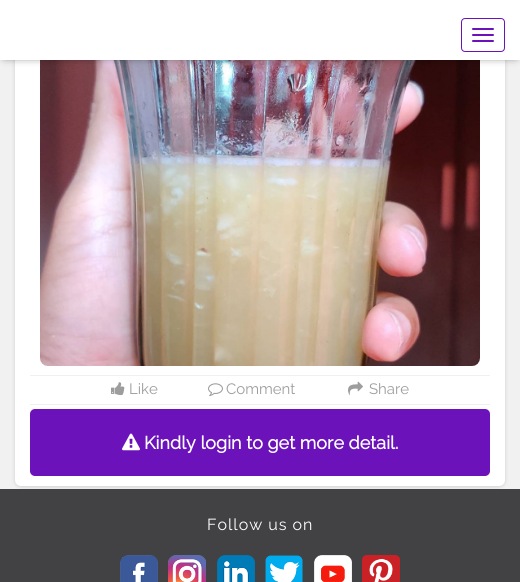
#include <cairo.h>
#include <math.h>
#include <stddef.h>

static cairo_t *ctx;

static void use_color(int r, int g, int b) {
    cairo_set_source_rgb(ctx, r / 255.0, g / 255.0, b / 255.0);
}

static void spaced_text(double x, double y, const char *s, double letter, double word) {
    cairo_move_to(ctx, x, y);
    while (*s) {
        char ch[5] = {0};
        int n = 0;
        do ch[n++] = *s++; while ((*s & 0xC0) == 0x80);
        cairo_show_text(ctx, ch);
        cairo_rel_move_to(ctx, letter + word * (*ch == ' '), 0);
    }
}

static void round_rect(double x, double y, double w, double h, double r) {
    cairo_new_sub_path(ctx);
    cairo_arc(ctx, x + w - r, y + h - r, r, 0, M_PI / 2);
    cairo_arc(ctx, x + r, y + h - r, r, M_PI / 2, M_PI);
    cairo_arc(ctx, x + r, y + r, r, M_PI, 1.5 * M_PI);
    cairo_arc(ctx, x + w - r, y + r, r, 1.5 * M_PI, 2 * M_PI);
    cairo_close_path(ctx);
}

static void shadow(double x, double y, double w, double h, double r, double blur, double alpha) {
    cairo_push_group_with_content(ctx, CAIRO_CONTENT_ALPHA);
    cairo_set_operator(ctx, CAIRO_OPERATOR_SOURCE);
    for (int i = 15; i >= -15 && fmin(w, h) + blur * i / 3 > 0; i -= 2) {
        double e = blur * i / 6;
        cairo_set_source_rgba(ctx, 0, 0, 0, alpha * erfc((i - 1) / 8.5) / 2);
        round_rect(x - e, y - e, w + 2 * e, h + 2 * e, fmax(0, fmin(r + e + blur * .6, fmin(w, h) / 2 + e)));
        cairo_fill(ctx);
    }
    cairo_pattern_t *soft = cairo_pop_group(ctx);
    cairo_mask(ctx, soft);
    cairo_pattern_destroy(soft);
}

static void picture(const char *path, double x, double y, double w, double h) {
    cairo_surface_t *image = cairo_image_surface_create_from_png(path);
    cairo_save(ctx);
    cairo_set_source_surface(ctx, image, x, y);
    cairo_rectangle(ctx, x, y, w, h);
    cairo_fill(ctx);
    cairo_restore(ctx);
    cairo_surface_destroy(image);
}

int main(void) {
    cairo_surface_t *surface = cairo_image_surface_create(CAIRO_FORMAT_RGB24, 520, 582);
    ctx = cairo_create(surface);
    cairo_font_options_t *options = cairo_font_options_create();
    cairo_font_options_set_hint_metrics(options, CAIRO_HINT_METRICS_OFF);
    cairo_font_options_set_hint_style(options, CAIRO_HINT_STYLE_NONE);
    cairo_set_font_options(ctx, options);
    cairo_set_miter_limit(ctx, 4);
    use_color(241, 241, 241);
    cairo_paint(ctx);
    use_color(0, 0, 0);
    shadow(15, -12, 490, 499, 6, 2, 0.14);
    use_color(255, 255, 255);
    round_rect(15, -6, 490, 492, 6);
    cairo_fill(ctx);
    use_color(251, 251, 251);
    round_rect(40, 16, 440, 350, 8);
    cairo_fill(ctx);
    picture("img1.png", 40, 60, 440, 306);
    use_color(0, 0, 0);
    shadow(5, 5, 510, 50, 0, 5, 1);
    use_color(255, 255, 255);
    cairo_rectangle(ctx, 0, 0, 520, 60);
    cairo_fill(ctx);
    round_rect(461.5, 18.5, 43, 33, 3.5);
    use_color(108, 18, 187);
    cairo_set_line_width(ctx, 1);
    cairo_stroke(ctx);
    round_rect(472, 28, 22, 2, 1);
    cairo_fill(ctx);
    round_rect(472, 34, 22, 2, 1);
    cairo_fill(ctx);
    round_rect(472, 40, 22, 2, 1);
    cairo_fill(ctx);
    use_color(240, 240, 240);
    cairo_rectangle(ctx, 30, 375, 460, 1);
    cairo_fill(ctx);
    cairo_rectangle(ctx, 30, 404, 460, 1);
    cairo_fill(ctx);
    picture("img2.png", 111, 382, 14, 14);
    cairo_select_font_face(ctx, "Raleway Thin", CAIRO_FONT_SLANT_NORMAL, CAIRO_FONT_WEIGHT_NORMAL);
    cairo_set_font_size(ctx, 15);
    use_color(157, 157, 157);
    cairo_move_to(ctx, 129, 394);
    cairo_show_text(ctx, "Like");
    picture("img3.png", 208, 383, 15, 14);
    cairo_move_to(ctx, 226, 394);
    cairo_show_text(ctx, "Comment");
    picture("img4.png", 348, 381, 15, 14);
    cairo_move_to(ctx, 369, 394);
    cairo_show_text(ctx, "Share");
    use_color(108, 18, 187);
    round_rect(30, 409, 460, 67, 5);
    cairo_fill(ctx);
    picture("img5.png", 122, 433, 18, 18);
    cairo_select_font_face(ctx, "Raleway", CAIRO_FONT_SLANT_NORMAL, CAIRO_FONT_WEIGHT_BOLD);
    cairo_set_font_size(ctx, 18);
    use_color(255, 255, 255);
    cairo_move_to(ctx, 144, 449);
    cairo_show_text(ctx, "Kindly login to get more detail.");
    use_color(66, 65, 67);
    cairo_rectangle(ctx, 0, 489, 520, 93);
    cairo_fill(ctx);
    cairo_select_font_face(ctx, "Raleway Thin", CAIRO_FONT_SLANT_NORMAL, CAIRO_FONT_WEIGHT_NORMAL);
    cairo_set_font_size(ctx, 16);
    use_color(255, 255, 255);
    spaced_text(207, 530, "Follow us on", 1, 0);
    picture("img6.png", 120, 555, 38, 27);
    picture("img7.png", 168, 555, 38, 27);
    picture("img8.png", 217, 555, 38, 27);
    picture("img9.png", 265, 555, 38, 27);
    picture("img10.png", 314, 555, 38, 27);
    picture("img11.png", 362, 555, 38, 27);
    cairo_surface_write_to_png(surface, "result.png");
    cairo_font_options_destroy(options);
    cairo_destroy(ctx);
    cairo_surface_destroy(surface);
    return 0;
}
